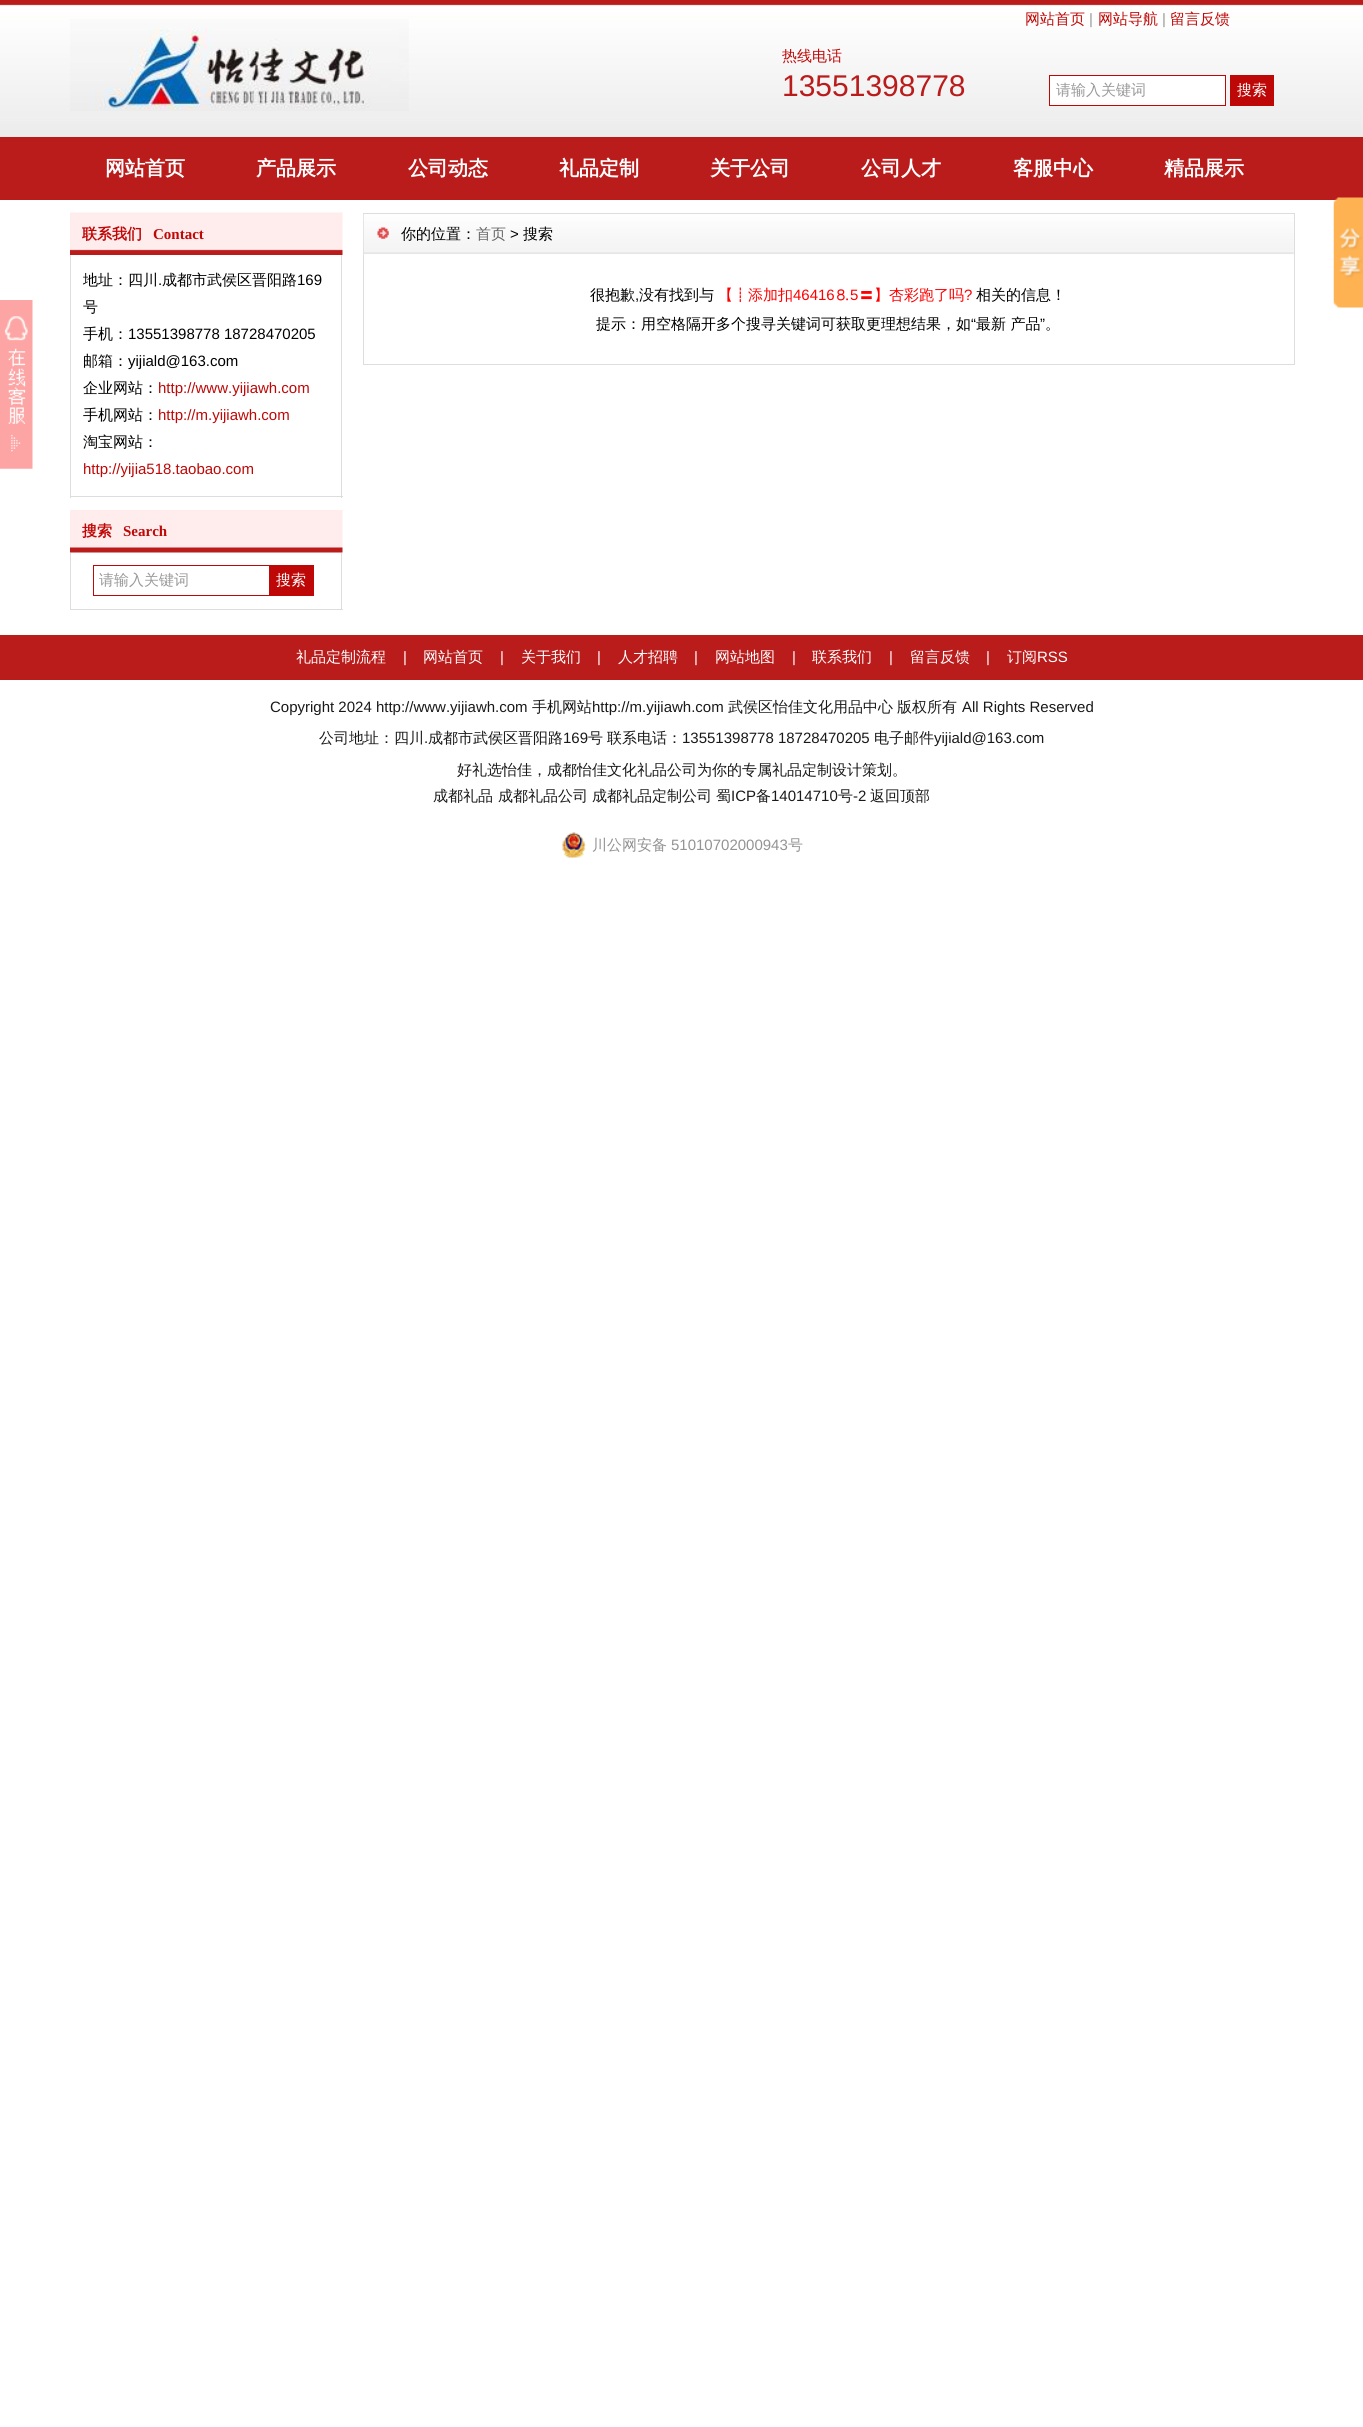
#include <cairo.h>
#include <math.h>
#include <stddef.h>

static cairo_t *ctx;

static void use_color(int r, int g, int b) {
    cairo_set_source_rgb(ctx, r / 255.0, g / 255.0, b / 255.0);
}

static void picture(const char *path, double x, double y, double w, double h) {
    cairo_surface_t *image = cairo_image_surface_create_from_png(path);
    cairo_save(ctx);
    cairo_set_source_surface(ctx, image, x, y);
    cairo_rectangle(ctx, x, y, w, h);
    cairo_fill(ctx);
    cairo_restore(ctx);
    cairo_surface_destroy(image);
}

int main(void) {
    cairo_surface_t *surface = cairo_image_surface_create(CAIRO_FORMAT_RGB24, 1363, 2427);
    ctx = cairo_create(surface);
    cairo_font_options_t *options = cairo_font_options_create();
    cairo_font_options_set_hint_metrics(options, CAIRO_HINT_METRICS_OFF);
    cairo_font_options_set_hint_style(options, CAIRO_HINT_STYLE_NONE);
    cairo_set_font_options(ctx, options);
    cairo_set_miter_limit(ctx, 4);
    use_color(255, 255, 255);
    cairo_paint(ctx);
    picture("img1.png", 0, 0, 1363, 137);
    picture("img2.png", 70, 19, 339, 92);
    cairo_select_font_face(ctx, "WenQuanYi Zen Hei Medium", CAIRO_FONT_SLANT_NORMAL, CAIRO_FONT_WEIGHT_NORMAL);
    cairo_set_font_size(ctx, 15);
    use_color(190, 8, 7);
    cairo_move_to(ctx, 1025, 24);
    cairo_show_text(ctx, "网站首页");
    cairo_select_font_face(ctx, "Liberation Sans", CAIRO_FONT_SLANT_NORMAL, CAIRO_FONT_WEIGHT_NORMAL);
    use_color(153, 153, 153);
    cairo_move_to(ctx, 1089, 24);
    cairo_show_text(ctx, "|");
    cairo_select_font_face(ctx, "WenQuanYi Zen Hei Medium", CAIRO_FONT_SLANT_NORMAL, CAIRO_FONT_WEIGHT_NORMAL);
    use_color(190, 8, 7);
    cairo_move_to(ctx, 1098, 24);
    cairo_show_text(ctx, "网站导航");
    cairo_select_font_face(ctx, "Liberation Sans", CAIRO_FONT_SLANT_NORMAL, CAIRO_FONT_WEIGHT_NORMAL);
    use_color(153, 153, 153);
    cairo_move_to(ctx, 1162, 24);
    cairo_show_text(ctx, "|");
    cairo_select_font_face(ctx, "WenQuanYi Zen Hei Medium", CAIRO_FONT_SLANT_NORMAL, CAIRO_FONT_WEIGHT_NORMAL);
    use_color(190, 8, 7);
    cairo_move_to(ctx, 1170, 24);
    cairo_show_text(ctx, "留言反馈");
    cairo_move_to(ctx, 782, 61);
    cairo_show_text(ctx, "热线电话");
    cairo_select_font_face(ctx, "Liberation Sans", CAIRO_FONT_SLANT_NORMAL, CAIRO_FONT_WEIGHT_NORMAL);
    cairo_set_font_size(ctx, 30);
    use_color(186, 27, 27);
    cairo_move_to(ctx, 782, 96);
    cairo_show_text(ctx, "13551398778");
    use_color(255, 255, 255);
    cairo_rectangle(ctx, 1049.5, 75.5, 176, 30);
    cairo_fill_preserve(ctx);
    use_color(190, 8, 7);
    cairo_set_line_width(ctx, 1);
    cairo_stroke(ctx);
    cairo_select_font_face(ctx, "WenQuanYi Zen Hei Medium", CAIRO_FONT_SLANT_NORMAL, CAIRO_FONT_WEIGHT_NORMAL);
    cairo_set_font_size(ctx, 15);
    use_color(153, 153, 153);
    cairo_move_to(ctx, 1056, 95);
    cairo_show_text(ctx, "请输入关键词");
    use_color(190, 8, 7);
    cairo_rectangle(ctx, 1230, 75, 44, 31);
    cairo_fill(ctx);
    use_color(255, 255, 255);
    cairo_move_to(ctx, 1237, 95);
    cairo_show_text(ctx, "搜索");
    use_color(186, 27, 27);
    cairo_rectangle(ctx, 0, 137, 1363, 63);
    cairo_fill(ctx);
    cairo_select_font_face(ctx, "WenQuanYi Zen Hei", CAIRO_FONT_SLANT_NORMAL, CAIRO_FONT_WEIGHT_BOLD);
    cairo_set_font_size(ctx, 20);
    use_color(255, 255, 255);
    cairo_move_to(ctx, 105, 175);
    cairo_show_text(ctx, "网站首页");
    cairo_move_to(ctx, 256, 175);
    cairo_show_text(ctx, "产品展示");
    cairo_move_to(ctx, 408, 175);
    cairo_show_text(ctx, "公司动态");
    cairo_move_to(ctx, 559, 175);
    cairo_show_text(ctx, "礼品定制");
    cairo_move_to(ctx, 710, 175);
    cairo_show_text(ctx, "关于公司");
    cairo_move_to(ctx, 861, 175);
    cairo_show_text(ctx, "公司人才");
    cairo_move_to(ctx, 1013, 175);
    cairo_show_text(ctx, "客服中心");
    cairo_move_to(ctx, 1164, 175);
    cairo_show_text(ctx, "精品展示");
    picture("img3.png", 70, 212, 273, 43);
    cairo_set_font_size(ctx, 15);
    use_color(190, 8, 7);
    cairo_move_to(ctx, 82, 239);
    cairo_show_text(ctx, "联系我们");
    cairo_select_font_face(ctx, "Liberation Serif", CAIRO_FONT_SLANT_NORMAL, CAIRO_FONT_WEIGHT_BOLD);
    cairo_move_to(ctx, 153, 239);
    cairo_show_text(ctx, "Contact");
    use_color(221, 221, 221);
    cairo_rectangle(ctx, 341, 255, 1, 243);
    cairo_fill(ctx);
    cairo_rectangle(ctx, 70, 496, 273, 1);
    cairo_fill(ctx);
    cairo_rectangle(ctx, 70, 255, 1, 243);
    cairo_fill(ctx);
    cairo_select_font_face(ctx, "WenQuanYi Zen Hei Medium", CAIRO_FONT_SLANT_NORMAL, CAIRO_FONT_WEIGHT_NORMAL);
    use_color(0, 0, 0);
    cairo_move_to(ctx, 83, 285);
    cairo_show_text(ctx, "地址：四川");
    cairo_select_font_face(ctx, "Liberation Sans", CAIRO_FONT_SLANT_NORMAL, CAIRO_FONT_WEIGHT_NORMAL);
    cairo_move_to(ctx, 158, 285);
    cairo_show_text(ctx, ".");
    cairo_select_font_face(ctx, "WenQuanYi Zen Hei Medium", CAIRO_FONT_SLANT_NORMAL, CAIRO_FONT_WEIGHT_NORMAL);
    cairo_move_to(ctx, 162, 285);
    cairo_show_text(ctx, "成都市武侯区晋阳路");
    cairo_select_font_face(ctx, "Liberation Sans", CAIRO_FONT_SLANT_NORMAL, CAIRO_FONT_WEIGHT_NORMAL);
    cairo_move_to(ctx, 297, 285);
    cairo_show_text(ctx, "169");
    cairo_select_font_face(ctx, "WenQuanYi Zen Hei Medium", CAIRO_FONT_SLANT_NORMAL, CAIRO_FONT_WEIGHT_NORMAL);
    cairo_move_to(ctx, 83, 312);
    cairo_show_text(ctx, "号");
    cairo_move_to(ctx, 83, 339);
    cairo_show_text(ctx, "手机：");
    cairo_select_font_face(ctx, "Liberation Sans", CAIRO_FONT_SLANT_NORMAL, CAIRO_FONT_WEIGHT_NORMAL);
    cairo_move_to(ctx, 128, 339);
    cairo_show_text(ctx, "13551398778 18728470205");
    cairo_select_font_face(ctx, "WenQuanYi Zen Hei Medium", CAIRO_FONT_SLANT_NORMAL, CAIRO_FONT_WEIGHT_NORMAL);
    cairo_move_to(ctx, 83, 366);
    cairo_show_text(ctx, "邮箱：");
    cairo_select_font_face(ctx, "Liberation Sans", CAIRO_FONT_SLANT_NORMAL, CAIRO_FONT_WEIGHT_NORMAL);
    cairo_move_to(ctx, 128, 366);
    cairo_show_text(ctx, "yijiald@163.com");
    cairo_select_font_face(ctx, "WenQuanYi Zen Hei Medium", CAIRO_FONT_SLANT_NORMAL, CAIRO_FONT_WEIGHT_NORMAL);
    cairo_move_to(ctx, 83, 393);
    cairo_show_text(ctx, "企业网站：");
    cairo_select_font_face(ctx, "Liberation Sans", CAIRO_FONT_SLANT_NORMAL, CAIRO_FONT_WEIGHT_NORMAL);
    use_color(190, 8, 7);
    cairo_move_to(ctx, 158, 393);
    cairo_show_text(ctx, "http://www.yijiawh.com");
    cairo_select_font_face(ctx, "WenQuanYi Zen Hei Medium", CAIRO_FONT_SLANT_NORMAL, CAIRO_FONT_WEIGHT_NORMAL);
    use_color(0, 0, 0);
    cairo_move_to(ctx, 83, 420);
    cairo_show_text(ctx, "手机网站：");
    cairo_select_font_face(ctx, "Liberation Sans", CAIRO_FONT_SLANT_NORMAL, CAIRO_FONT_WEIGHT_NORMAL);
    use_color(190, 8, 7);
    cairo_move_to(ctx, 158, 420);
    cairo_show_text(ctx, "http://m.yijiawh.com");
    cairo_select_font_face(ctx, "WenQuanYi Zen Hei Medium", CAIRO_FONT_SLANT_NORMAL, CAIRO_FONT_WEIGHT_NORMAL);
    use_color(0, 0, 0);
    cairo_move_to(ctx, 83, 447);
    cairo_show_text(ctx, "淘宝网站：");
    cairo_select_font_face(ctx, "Liberation Sans", CAIRO_FONT_SLANT_NORMAL, CAIRO_FONT_WEIGHT_NORMAL);
    use_color(190, 8, 7);
    cairo_move_to(ctx, 83, 474);
    cairo_show_text(ctx, "http://yijia518.taobao.com");
    picture("img4.png", 70, 510, 273, 43);
    cairo_select_font_face(ctx, "WenQuanYi Zen Hei", CAIRO_FONT_SLANT_NORMAL, CAIRO_FONT_WEIGHT_BOLD);
    cairo_move_to(ctx, 82, 536);
    cairo_show_text(ctx, "搜索");
    cairo_select_font_face(ctx, "Liberation Serif", CAIRO_FONT_SLANT_NORMAL, CAIRO_FONT_WEIGHT_BOLD);
    cairo_move_to(ctx, 123, 536);
    cairo_show_text(ctx, "Search");
    use_color(221, 221, 221);
    cairo_rectangle(ctx, 341, 553, 1, 57);
    cairo_fill(ctx);
    cairo_rectangle(ctx, 70, 609, 273, 1);
    cairo_fill(ctx);
    cairo_rectangle(ctx, 70, 553, 1, 57);
    cairo_fill(ctx);
    cairo_rectangle(ctx, 93.5, 565.5, 176, 30);
    use_color(190, 8, 7);
    cairo_stroke(ctx);
    cairo_select_font_face(ctx, "WenQuanYi Zen Hei Medium", CAIRO_FONT_SLANT_NORMAL, CAIRO_FONT_WEIGHT_NORMAL);
    use_color(153, 153, 153);
    cairo_move_to(ctx, 99, 585);
    cairo_show_text(ctx, "请输入关键词");
    use_color(190, 8, 7);
    cairo_rectangle(ctx, 270, 565, 44, 31);
    cairo_fill(ctx);
    use_color(255, 255, 255);
    cairo_move_to(ctx, 276, 585);
    cairo_show_text(ctx, "搜索");
    cairo_rectangle(ctx, 363.5, 213.5, 931, 151);
    use_color(221, 221, 221);
    cairo_stroke(ctx);
    picture("img5.png", 363, 214, 931, 41);
    picture("img6.png", 377, 227, 12, 12);
    use_color(0, 0, 0);
    cairo_move_to(ctx, 401, 239);
    cairo_show_text(ctx, "你的位置：");
    use_color(102, 102, 102);
    cairo_move_to(ctx, 476, 239);
    cairo_show_text(ctx, "首页");
    cairo_select_font_face(ctx, "Liberation Sans", CAIRO_FONT_SLANT_NORMAL, CAIRO_FONT_WEIGHT_NORMAL);
    use_color(0, 0, 0);
    cairo_move_to(ctx, 510, 239);
    cairo_show_text(ctx, ">");
    cairo_select_font_face(ctx, "WenQuanYi Zen Hei Medium", CAIRO_FONT_SLANT_NORMAL, CAIRO_FONT_WEIGHT_NORMAL);
    cairo_move_to(ctx, 523, 239);
    cairo_show_text(ctx, "搜索");
    cairo_move_to(ctx, 590, 300);
    cairo_show_text(ctx, "很抱歉");
    cairo_select_font_face(ctx, "Liberation Sans", CAIRO_FONT_SLANT_NORMAL, CAIRO_FONT_WEIGHT_NORMAL);
    cairo_move_to(ctx, 635, 300);
    cairo_show_text(ctx, ",");
    cairo_select_font_face(ctx, "WenQuanYi Zen Hei Medium", CAIRO_FONT_SLANT_NORMAL, CAIRO_FONT_WEIGHT_NORMAL);
    cairo_move_to(ctx, 639, 300);
    cairo_show_text(ctx, "没有找到与");
    use_color(255, 0, 0);
    cairo_move_to(ctx, 718, 300);
    cairo_show_text(ctx, "【┋添加扣");
    cairo_select_font_face(ctx, "Liberation Sans", CAIRO_FONT_SLANT_NORMAL, CAIRO_FONT_WEIGHT_NORMAL);
    cairo_move_to(ctx, 793, 300);
    cairo_show_text(ctx, "46416");
    cairo_select_font_face(ctx, "WenQuanYi Zen Hei Medium", CAIRO_FONT_SLANT_NORMAL, CAIRO_FONT_WEIGHT_NORMAL);
    cairo_move_to(ctx, 835, 300);
    cairo_show_text(ctx, "⒏");
    cairo_select_font_face(ctx, "Liberation Sans", CAIRO_FONT_SLANT_NORMAL, CAIRO_FONT_WEIGHT_NORMAL);
    cairo_move_to(ctx, 850, 300);
    cairo_show_text(ctx, "5");
    cairo_select_font_face(ctx, "WenQuanYi Zen Hei Medium", CAIRO_FONT_SLANT_NORMAL, CAIRO_FONT_WEIGHT_NORMAL);
    cairo_move_to(ctx, 859, 300);
    cairo_show_text(ctx, "〓】杏彩跑了吗");
    cairo_select_font_face(ctx, "Liberation Sans", CAIRO_FONT_SLANT_NORMAL, CAIRO_FONT_WEIGHT_NORMAL);
    cairo_move_to(ctx, 964, 300);
    cairo_show_text(ctx, "?");
    cairo_select_font_face(ctx, "WenQuanYi Zen Hei Medium", CAIRO_FONT_SLANT_NORMAL, CAIRO_FONT_WEIGHT_NORMAL);
    use_color(0, 0, 0);
    cairo_move_to(ctx, 976, 300);
    cairo_show_text(ctx, "相关的信息！");
    cairo_move_to(ctx, 596, 329);
    cairo_show_text(ctx, "提示：用空格隔开多个搜寻关键词可获取更理想结果，如");
    cairo_select_font_face(ctx, "Liberation Sans", CAIRO_FONT_SLANT_NORMAL, CAIRO_FONT_WEIGHT_NORMAL);
    cairo_move_to(ctx, 971, 329);
    cairo_show_text(ctx, "“");
    cairo_select_font_face(ctx, "WenQuanYi Zen Hei Medium", CAIRO_FONT_SLANT_NORMAL, CAIRO_FONT_WEIGHT_NORMAL);
    cairo_move_to(ctx, 976, 329);
    cairo_show_text(ctx, "最新 产品");
    cairo_select_font_face(ctx, "Liberation Sans", CAIRO_FONT_SLANT_NORMAL, CAIRO_FONT_WEIGHT_NORMAL);
    cairo_move_to(ctx, 1040, 329);
    cairo_show_text(ctx, "”");
    cairo_select_font_face(ctx, "WenQuanYi Zen Hei Medium", CAIRO_FONT_SLANT_NORMAL, CAIRO_FONT_WEIGHT_NORMAL);
    cairo_move_to(ctx, 1045, 329);
    cairo_show_text(ctx, "。");
    use_color(186, 27, 27);
    cairo_rectangle(ctx, 0, 635, 1363, 45);
    cairo_fill(ctx);
    use_color(255, 255, 255);
    cairo_move_to(ctx, 296, 662);
    cairo_show_text(ctx, "礼品定制流程");
    cairo_select_font_face(ctx, "Liberation Sans", CAIRO_FONT_SLANT_NORMAL, CAIRO_FONT_WEIGHT_NORMAL);
    cairo_move_to(ctx, 403, 662);
    cairo_show_text(ctx, "|");
    cairo_select_font_face(ctx, "WenQuanYi Zen Hei Medium", CAIRO_FONT_SLANT_NORMAL, CAIRO_FONT_WEIGHT_NORMAL);
    cairo_move_to(ctx, 423, 662);
    cairo_show_text(ctx, "网站首页");
    cairo_select_font_face(ctx, "Liberation Sans", CAIRO_FONT_SLANT_NORMAL, CAIRO_FONT_WEIGHT_NORMAL);
    cairo_move_to(ctx, 500, 662);
    cairo_show_text(ctx, "|");
    cairo_select_font_face(ctx, "WenQuanYi Zen Hei Medium", CAIRO_FONT_SLANT_NORMAL, CAIRO_FONT_WEIGHT_NORMAL);
    cairo_move_to(ctx, 521, 662);
    cairo_show_text(ctx, "关于我们");
    cairo_select_font_face(ctx, "Liberation Sans", CAIRO_FONT_SLANT_NORMAL, CAIRO_FONT_WEIGHT_NORMAL);
    cairo_move_to(ctx, 597, 662);
    cairo_show_text(ctx, "|");
    cairo_select_font_face(ctx, "WenQuanYi Zen Hei Medium", CAIRO_FONT_SLANT_NORMAL, CAIRO_FONT_WEIGHT_NORMAL);
    cairo_move_to(ctx, 618, 662);
    cairo_show_text(ctx, "人才招聘");
    cairo_select_font_face(ctx, "Liberation Sans", CAIRO_FONT_SLANT_NORMAL, CAIRO_FONT_WEIGHT_NORMAL);
    cairo_move_to(ctx, 694, 662);
    cairo_show_text(ctx, "|");
    cairo_select_font_face(ctx, "WenQuanYi Zen Hei Medium", CAIRO_FONT_SLANT_NORMAL, CAIRO_FONT_WEIGHT_NORMAL);
    cairo_move_to(ctx, 715, 662);
    cairo_show_text(ctx, "网站地图");
    cairo_select_font_face(ctx, "Liberation Sans", CAIRO_FONT_SLANT_NORMAL, CAIRO_FONT_WEIGHT_NORMAL);
    cairo_move_to(ctx, 792, 662);
    cairo_show_text(ctx, "|");
    cairo_select_font_face(ctx, "WenQuanYi Zen Hei Medium", CAIRO_FONT_SLANT_NORMAL, CAIRO_FONT_WEIGHT_NORMAL);
    cairo_move_to(ctx, 812, 662);
    cairo_show_text(ctx, "联系我们");
    cairo_select_font_face(ctx, "Liberation Sans", CAIRO_FONT_SLANT_NORMAL, CAIRO_FONT_WEIGHT_NORMAL);
    cairo_move_to(ctx, 889, 662);
    cairo_show_text(ctx, "|");
    cairo_select_font_face(ctx, "WenQuanYi Zen Hei Medium", CAIRO_FONT_SLANT_NORMAL, CAIRO_FONT_WEIGHT_NORMAL);
    cairo_move_to(ctx, 910, 662);
    cairo_show_text(ctx, "留言反馈");
    cairo_select_font_face(ctx, "Liberation Sans", CAIRO_FONT_SLANT_NORMAL, CAIRO_FONT_WEIGHT_NORMAL);
    cairo_move_to(ctx, 986, 662);
    cairo_show_text(ctx, "|");
    cairo_select_font_face(ctx, "WenQuanYi Zen Hei Medium", CAIRO_FONT_SLANT_NORMAL, CAIRO_FONT_WEIGHT_NORMAL);
    cairo_move_to(ctx, 1007, 662);
    cairo_show_text(ctx, "订阅");
    cairo_select_font_face(ctx, "Liberation Sans", CAIRO_FONT_SLANT_NORMAL, CAIRO_FONT_WEIGHT_NORMAL);
    cairo_move_to(ctx, 1037, 662);
    cairo_show_text(ctx, "RSS");
    use_color(25, 25, 25);
    cairo_move_to(ctx, 270, 712);
    cairo_show_text(ctx, "Copyright 2024 http://www.yijiawh.com");
    cairo_select_font_face(ctx, "WenQuanYi Zen Hei Medium", CAIRO_FONT_SLANT_NORMAL, CAIRO_FONT_WEIGHT_NORMAL);
    cairo_move_to(ctx, 532, 712);
    cairo_show_text(ctx, "手机网站");
    cairo_select_font_face(ctx, "Liberation Sans", CAIRO_FONT_SLANT_NORMAL, CAIRO_FONT_WEIGHT_NORMAL);
    cairo_move_to(ctx, 592, 712);
    cairo_show_text(ctx, "http://m.yijiawh.com");
    cairo_select_font_face(ctx, "WenQuanYi Zen Hei Medium", CAIRO_FONT_SLANT_NORMAL, CAIRO_FONT_WEIGHT_NORMAL);
    cairo_move_to(ctx, 728, 712);
    cairo_show_text(ctx, "武侯区怡佳文化用品中心");
    cairo_move_to(ctx, 897, 712);
    cairo_show_text(ctx, "版权所有");
    cairo_select_font_face(ctx, "Liberation Sans", CAIRO_FONT_SLANT_NORMAL, CAIRO_FONT_WEIGHT_NORMAL);
    cairo_move_to(ctx, 962, 712);
    cairo_show_text(ctx, "All Rights Reserved");
    cairo_select_font_face(ctx, "WenQuanYi Zen Hei Medium", CAIRO_FONT_SLANT_NORMAL, CAIRO_FONT_WEIGHT_NORMAL);
    cairo_move_to(ctx, 319, 743);
    cairo_show_text(ctx, "公司地址：四川");
    cairo_select_font_face(ctx, "Liberation Sans", CAIRO_FONT_SLANT_NORMAL, CAIRO_FONT_WEIGHT_NORMAL);
    cairo_move_to(ctx, 424, 743);
    cairo_show_text(ctx, ".");
    cairo_select_font_face(ctx, "WenQuanYi Zen Hei Medium", CAIRO_FONT_SLANT_NORMAL, CAIRO_FONT_WEIGHT_NORMAL);
    cairo_move_to(ctx, 428, 743);
    cairo_show_text(ctx, "成都市武侯区晋阳路");
    cairo_select_font_face(ctx, "Liberation Sans", CAIRO_FONT_SLANT_NORMAL, CAIRO_FONT_WEIGHT_NORMAL);
    cairo_move_to(ctx, 563, 743);
    cairo_show_text(ctx, "169");
    cairo_select_font_face(ctx, "WenQuanYi Zen Hei Medium", CAIRO_FONT_SLANT_NORMAL, CAIRO_FONT_WEIGHT_NORMAL);
    cairo_move_to(ctx, 588, 743);
    cairo_show_text(ctx, "号");
    cairo_move_to(ctx, 607, 743);
    cairo_show_text(ctx, "联系电话：");
    cairo_select_font_face(ctx, "Liberation Sans", CAIRO_FONT_SLANT_NORMAL, CAIRO_FONT_WEIGHT_NORMAL);
    cairo_move_to(ctx, 682, 743);
    cairo_show_text(ctx, "13551398778 18728470205");
    cairo_select_font_face(ctx, "WenQuanYi Zen Hei Medium", CAIRO_FONT_SLANT_NORMAL, CAIRO_FONT_WEIGHT_NORMAL);
    cairo_move_to(ctx, 874, 743);
    cairo_show_text(ctx, "电子邮件");
    cairo_select_font_face(ctx, "Liberation Sans", CAIRO_FONT_SLANT_NORMAL, CAIRO_FONT_WEIGHT_NORMAL);
    cairo_move_to(ctx, 934, 743);
    cairo_show_text(ctx, "yijiald@163.com");
    cairo_select_font_face(ctx, "WenQuanYi Zen Hei Medium", CAIRO_FONT_SLANT_NORMAL, CAIRO_FONT_WEIGHT_NORMAL);
    cairo_move_to(ctx, 457, 775);
    cairo_show_text(ctx, "好礼选怡佳，成都怡佳文化礼品公司为你的专属礼品定制设计策划。");
    cairo_move_to(ctx, 433, 801);
    cairo_show_text(ctx, "成都礼品");
    cairo_move_to(ctx, 498, 801);
    cairo_show_text(ctx, "成都礼品公司");
    cairo_move_to(ctx, 592, 801);
    cairo_show_text(ctx, "成都礼品定制公司");
    cairo_move_to(ctx, 716, 801);
    cairo_show_text(ctx, "蜀");
    cairo_select_font_face(ctx, "Liberation Sans", CAIRO_FONT_SLANT_NORMAL, CAIRO_FONT_WEIGHT_NORMAL);
    cairo_move_to(ctx, 731, 801);
    cairo_show_text(ctx, "ICP");
    cairo_select_font_face(ctx, "WenQuanYi Zen Hei Medium", CAIRO_FONT_SLANT_NORMAL, CAIRO_FONT_WEIGHT_NORMAL);
    cairo_move_to(ctx, 756, 801);
    cairo_show_text(ctx, "备");
    cairo_select_font_face(ctx, "Liberation Sans", CAIRO_FONT_SLANT_NORMAL, CAIRO_FONT_WEIGHT_NORMAL);
    cairo_move_to(ctx, 771, 801);
    cairo_show_text(ctx, "14014710");
    cairo_select_font_face(ctx, "WenQuanYi Zen Hei Medium", CAIRO_FONT_SLANT_NORMAL, CAIRO_FONT_WEIGHT_NORMAL);
    cairo_move_to(ctx, 838, 801);
    cairo_show_text(ctx, "号");
    cairo_select_font_face(ctx, "Liberation Sans", CAIRO_FONT_SLANT_NORMAL, CAIRO_FONT_WEIGHT_NORMAL);
    cairo_move_to(ctx, 853, 801);
    cairo_show_text(ctx, "-2");
    cairo_select_font_face(ctx, "WenQuanYi Zen Hei Medium", CAIRO_FONT_SLANT_NORMAL, CAIRO_FONT_WEIGHT_NORMAL);
    cairo_move_to(ctx, 870, 801);
    cairo_show_text(ctx, "返回顶部");
    picture("img7.png", 0, 300, 33, 169);
    picture("img8.png", 562, 832, 24, 26);
    use_color(147, 147, 147);
    cairo_move_to(ctx, 592, 850);
    cairo_show_text(ctx, "川公网安备");
    cairo_select_font_face(ctx, "Liberation Sans", CAIRO_FONT_SLANT_NORMAL, CAIRO_FONT_WEIGHT_NORMAL);
    cairo_move_to(ctx, 671, 850);
    cairo_show_text(ctx, "51010702000943");
    cairo_select_font_face(ctx, "WenQuanYi Zen Hei Medium", CAIRO_FONT_SLANT_NORMAL, CAIRO_FONT_WEIGHT_NORMAL);
    cairo_move_to(ctx, 788, 850);
    cairo_show_text(ctx, "号");
    picture("img9.png", 1333, 197, 30, 111);
    cairo_surface_write_to_png(surface, "result.png");
    cairo_font_options_destroy(options);
    cairo_destroy(ctx);
    cairo_surface_destroy(surface);
    return 0;
}
